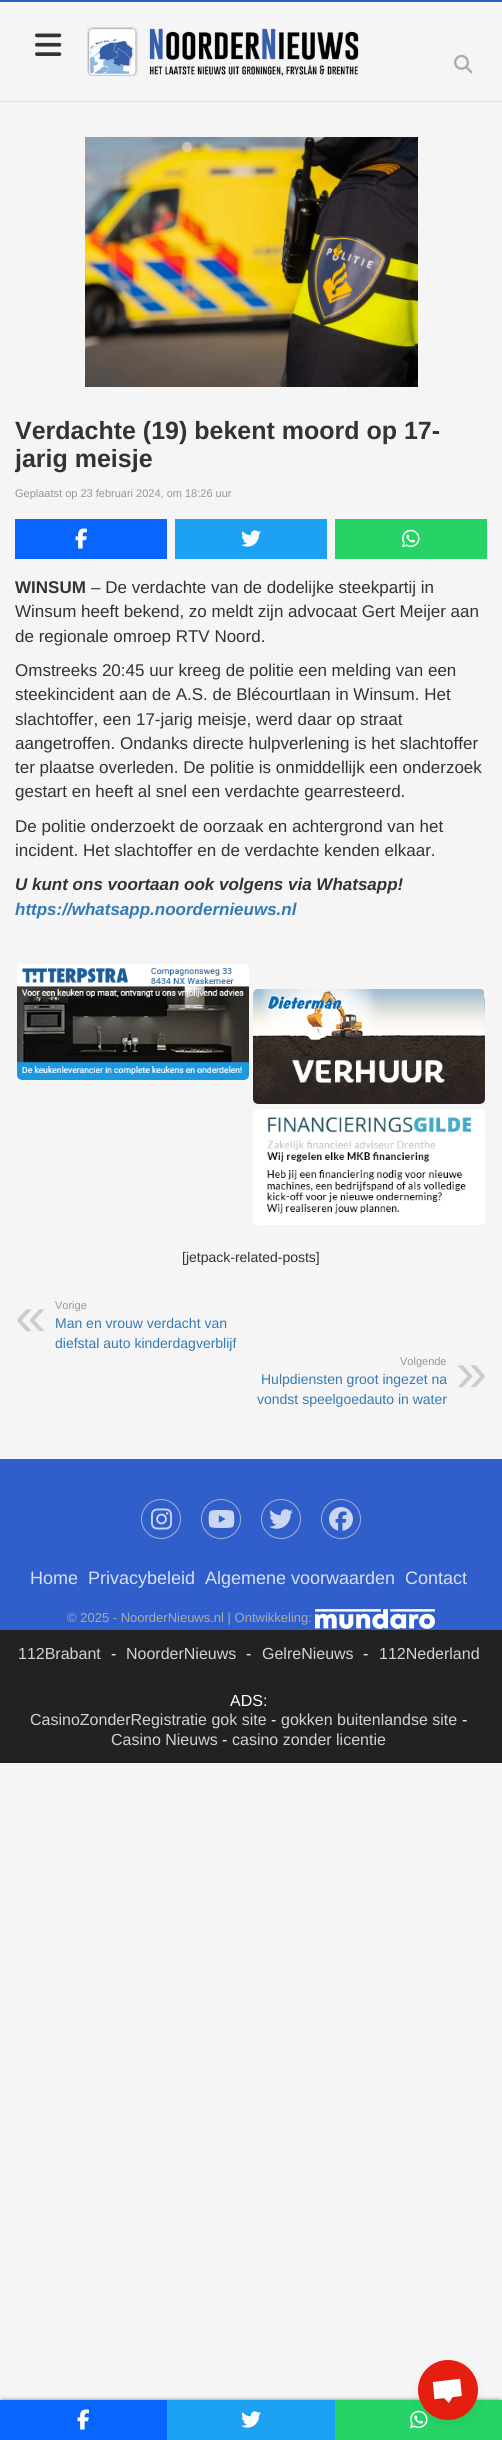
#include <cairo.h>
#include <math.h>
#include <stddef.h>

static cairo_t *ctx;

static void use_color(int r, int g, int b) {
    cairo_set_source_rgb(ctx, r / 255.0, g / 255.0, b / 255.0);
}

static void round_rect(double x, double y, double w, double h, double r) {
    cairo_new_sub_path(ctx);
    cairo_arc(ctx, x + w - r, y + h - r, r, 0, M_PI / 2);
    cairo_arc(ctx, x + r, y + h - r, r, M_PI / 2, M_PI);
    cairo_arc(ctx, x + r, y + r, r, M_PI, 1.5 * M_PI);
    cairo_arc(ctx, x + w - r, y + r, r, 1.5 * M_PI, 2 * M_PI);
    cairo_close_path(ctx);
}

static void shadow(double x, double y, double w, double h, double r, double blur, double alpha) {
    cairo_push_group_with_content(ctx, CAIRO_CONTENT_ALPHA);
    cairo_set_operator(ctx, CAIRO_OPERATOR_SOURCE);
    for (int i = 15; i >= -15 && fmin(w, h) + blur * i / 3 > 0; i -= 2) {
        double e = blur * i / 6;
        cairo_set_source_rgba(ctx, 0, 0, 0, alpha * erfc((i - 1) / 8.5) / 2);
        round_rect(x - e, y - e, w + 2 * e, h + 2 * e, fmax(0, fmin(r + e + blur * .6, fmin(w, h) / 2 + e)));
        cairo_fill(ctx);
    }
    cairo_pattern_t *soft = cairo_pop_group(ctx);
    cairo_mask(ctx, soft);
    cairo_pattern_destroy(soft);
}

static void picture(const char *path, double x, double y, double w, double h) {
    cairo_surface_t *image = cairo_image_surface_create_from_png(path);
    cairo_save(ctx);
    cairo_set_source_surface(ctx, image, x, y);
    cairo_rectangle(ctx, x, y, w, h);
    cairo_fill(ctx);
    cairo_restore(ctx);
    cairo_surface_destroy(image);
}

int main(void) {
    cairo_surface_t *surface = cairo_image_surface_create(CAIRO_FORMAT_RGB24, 502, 2440);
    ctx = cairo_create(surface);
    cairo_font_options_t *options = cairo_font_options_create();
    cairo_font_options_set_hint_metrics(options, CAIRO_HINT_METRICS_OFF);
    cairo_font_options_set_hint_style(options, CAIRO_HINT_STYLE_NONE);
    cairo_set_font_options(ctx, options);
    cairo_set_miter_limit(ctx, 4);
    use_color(245, 245, 245);
    cairo_paint(ctx);
    use_color(48, 95, 204);
    cairo_rectangle(ctx, 0, 0, 502, 2);
    cairo_fill(ctx);
    use_color(225, 224, 224);
    cairo_rectangle(ctx, 0, 101, 502, 1);
    cairo_fill(ctx);
    picture("img1.png", 35, 33, 27, 23);
    picture("img2.png", 87, 27, 272, 49);
    picture("img3.png", 454, 54, 19, 20);
    picture("img4.png", 85, 137, 333, 250);
    cairo_select_font_face(ctx, "Liberation Sans", CAIRO_FONT_SLANT_NORMAL, CAIRO_FONT_WEIGHT_BOLD);
    cairo_set_font_size(ctx, 25);
    use_color(51, 51, 51);
    cairo_move_to(ctx, 15, 439);
    cairo_show_text(ctx, "Verdachte (19) bekent moord op 17-");
    cairo_save(ctx);
    cairo_rectangle(ctx, 15, 137, 472, 805);
    cairo_clip(ctx);
    cairo_move_to(ctx, 15, 467);
    cairo_show_text(ctx, "jarig meisje");
    cairo_restore(ctx);
    cairo_select_font_face(ctx, "Liberation Sans", CAIRO_FONT_SLANT_NORMAL, CAIRO_FONT_WEIGHT_NORMAL);
    cairo_set_font_size(ctx, 11);
    use_color(150, 150, 150);
    cairo_move_to(ctx, 15, 497);
    cairo_show_text(ctx, "Geplaatst op 23 februari 2024, om 18:26 uur");
    use_color(8, 102, 255);
    cairo_rectangle(ctx, 15, 519, 152, 40);
    cairo_fill(ctx);
    picture("img5.png", 75, 528, 12, 21);
    use_color(29, 161, 242);
    cairo_rectangle(ctx, 175, 519, 152, 40);
    cairo_fill(ctx);
    picture("img6.png", 241, 530, 20, 17);
    use_color(37, 211, 102);
    cairo_rectangle(ctx, 335, 519, 152, 40);
    cairo_fill(ctx);
    picture("img7.png", 402, 529, 18, 19);
    cairo_select_font_face(ctx, "Liberation Sans", CAIRO_FONT_SLANT_NORMAL, CAIRO_FONT_WEIGHT_BOLD);
    cairo_set_font_size(ctx, 17);
    use_color(51, 51, 51);
    cairo_move_to(ctx, 15, 593);
    cairo_show_text(ctx, "WINSUM");
    cairo_select_font_face(ctx, "Liberation Sans", CAIRO_FONT_SLANT_NORMAL, CAIRO_FONT_WEIGHT_NORMAL);
    cairo_move_to(ctx, 91, 593);
    cairo_show_text(ctx, "– De verdachte van de dodelijke steekpartij in");
    cairo_move_to(ctx, 15, 617);
    cairo_show_text(ctx, "Winsum heeft bekend, zo meldt zijn advocaat Gert Meijer aan");
    cairo_move_to(ctx, 15, 642);
    cairo_show_text(ctx, "de regionale omroep RTV Noord.");
    cairo_move_to(ctx, 15, 676);
    cairo_show_text(ctx, "Omstreeks 20:45 uur kreeg de politie een melding van een");
    cairo_move_to(ctx, 15, 700);
    cairo_show_text(ctx, "steekincident aan de A.S. de Blécourtlaan in Winsum. Het");
    cairo_move_to(ctx, 15, 725);
    cairo_show_text(ctx, "slachtoffer, een 17-jarig meisje, werd daar op straat");
    cairo_move_to(ctx, 15, 749);
    cairo_show_text(ctx, "aangetroffen. Ondanks directe hulpverlening is het slachtoffer");
    cairo_move_to(ctx, 15, 773);
    cairo_show_text(ctx, "ter plaatse overleden. De politie is onmiddellijk een onderzoek");
    cairo_move_to(ctx, 15, 797);
    cairo_show_text(ctx, "gestart en heeft al snel een verdachte gearresteerd.");
    cairo_move_to(ctx, 15, 832);
    cairo_show_text(ctx, "De politie onderzoekt de oorzaak en achtergrond van het");
    cairo_move_to(ctx, 15, 856);
    cairo_show_text(ctx, "incident. Het slachtoffer en de verdachte kenden elkaar.");
    cairo_select_font_face(ctx, "Liberation Sans", CAIRO_FONT_SLANT_ITALIC, CAIRO_FONT_WEIGHT_BOLD);
    cairo_move_to(ctx, 15, 890);
    cairo_show_text(ctx, "U kunt ons voortaan ook volgens via Whatsapp!");
    use_color(51, 122, 183);
    cairo_move_to(ctx, 15, 915);
    cairo_show_text(ctx, "https://whatsapp.noordernieuws.nl");
    picture("img8.png", 17, 964, 232, 116);
    picture("img9.png", 253, 989, 232, 115);
    picture("img10.png", 253, 1109, 232, 116);
    cairo_select_font_face(ctx, "Liberation Sans", CAIRO_FONT_SLANT_NORMAL, CAIRO_FONT_WEIGHT_NORMAL);
    cairo_set_font_size(ctx, 14);
    use_color(51, 51, 51);
    cairo_move_to(ctx, 182, 1262);
    cairo_show_text(ctx, "[jetpack-related-posts]");
    cairo_set_font_size(ctx, 11);
    use_color(150, 150, 150);
    cairo_move_to(ctx, 55, 1309);
    cairo_show_text(ctx, "Vorige");
    cairo_set_font_size(ctx, 56);
    use_color(204, 204, 204);
    cairo_move_to(ctx, 15, 1335);
    cairo_show_text(ctx, "«");
    cairo_set_font_size(ctx, 14);
    use_color(51, 122, 183);
    cairo_move_to(ctx, 55, 1328);
    cairo_show_text(ctx, "Man en vrouw verdacht van");
    cairo_move_to(ctx, 55, 1348);
    cairo_show_text(ctx, "diefstal auto kinderdagverblijf");
    cairo_set_font_size(ctx, 11);
    use_color(150, 150, 150);
    cairo_move_to(ctx, 400, 1365);
    cairo_show_text(ctx, "Volgende");
    cairo_set_font_size(ctx, 14);
    use_color(51, 122, 183);
    cairo_move_to(ctx, 261, 1384);
    cairo_show_text(ctx, "Hulpdiensten groot ingezet na");
    cairo_set_font_size(ctx, 56);
    use_color(204, 204, 204);
    cairo_move_to(ctx, 456, 1391);
    cairo_show_text(ctx, "»");
    cairo_set_font_size(ctx, 14);
    use_color(51, 122, 183);
    cairo_move_to(ctx, 257, 1404);
    cairo_show_text(ctx, "vondst speelgoedauto in water");
    use_color(48, 95, 204);
    cairo_rectangle(ctx, 0, 1459, 502, 171);
    cairo_fill(ctx);
    cairo_arc(ctx, 161, 1519, 19.5, 0, 2 * M_PI);
    use_color(165, 177, 204);
    cairo_set_line_width(ctx, 1);
    cairo_stroke(ctx);
    picture("img11.png", 151, 1508, 21, 22);
    cairo_arc(ctx, 221, 1519, 19.5, 0, 2 * M_PI);
    cairo_stroke(ctx);
    picture("img12.png", 208, 1510, 27, 18);
    cairo_arc(ctx, 281, 1519, 19.5, 0, 2 * M_PI);
    cairo_stroke(ctx);
    picture("img13.png", 269, 1509, 24, 20);
    cairo_arc(ctx, 341, 1519, 19.5, 0, 2 * M_PI);
    cairo_stroke(ctx);
    picture("img14.png", 329, 1507, 24, 24);
    cairo_set_font_size(ctx, 18);
    use_color(214, 223, 245);
    cairo_move_to(ctx, 30, 1584);
    cairo_show_text(ctx, "Home");
    cairo_move_to(ctx, 88, 1584);
    cairo_show_text(ctx, "Privacybeleid");
    cairo_move_to(ctx, 205, 1584);
    cairo_show_text(ctx, "Algemene voorwaarden");
    cairo_move_to(ctx, 405, 1584);
    cairo_show_text(ctx, "Contact");
    cairo_set_font_size(ctx, 13);
    use_color(170, 170, 170);
    cairo_move_to(ctx, 67, 1622);
    cairo_show_text(ctx, "© 2025 - NoorderNieuws.nl | Ontwikkeling:");
    picture("img15.png", 315, 1609, 120, 20);
    use_color(34, 34, 34);
    cairo_rectangle(ctx, 0, 1630, 502, 133);
    cairo_fill(ctx);
    cairo_set_font_size(ctx, 16);
    use_color(211, 211, 211);
    cairo_move_to(ctx, 18, 1659);
    cairo_show_text(ctx, "112Brabant");
    use_color(255, 255, 255);
    cairo_move_to(ctx, 111, 1659);
    cairo_show_text(ctx, "-");
    use_color(211, 211, 211);
    cairo_move_to(ctx, 126, 1659);
    cairo_show_text(ctx, "NoorderNieuws");
    use_color(255, 255, 255);
    cairo_move_to(ctx, 246, 1659);
    cairo_show_text(ctx, "-");
    use_color(211, 211, 211);
    cairo_move_to(ctx, 262, 1659);
    cairo_show_text(ctx, "GelreNieuws");
    use_color(255, 255, 255);
    cairo_move_to(ctx, 363, 1659);
    cairo_show_text(ctx, "-");
    use_color(211, 211, 211);
    cairo_move_to(ctx, 379, 1659);
    cairo_show_text(ctx, "112Nederland");
    use_color(255, 255, 255);
    cairo_move_to(ctx, 230, 1706);
    cairo_show_text(ctx, "ADS:");
    use_color(211, 211, 211);
    cairo_move_to(ctx, 30, 1725);
    cairo_show_text(ctx, "CasinoZonderRegistratie gok site");
    use_color(255, 255, 255);
    cairo_move_to(ctx, 271, 1725);
    cairo_show_text(ctx, "-");
    use_color(211, 211, 211);
    cairo_move_to(ctx, 281, 1725);
    cairo_show_text(ctx, "gokken buitenlandse site");
    use_color(255, 255, 255);
    cairo_move_to(ctx, 462, 1725);
    cairo_show_text(ctx, "-");
    use_color(211, 211, 211);
    cairo_move_to(ctx, 111, 1745);
    cairo_show_text(ctx, "Casino Nieuws");
    use_color(255, 255, 255);
    cairo_move_to(ctx, 222, 1745);
    cairo_show_text(ctx, "-");
    use_color(211, 211, 211);
    cairo_move_to(ctx, 232, 1745);
    cairo_show_text(ctx, "casino zonder licentie");
    use_color(0, 0, 0);
    shadow(2, 2400, 498, 36, 0, 2, 0.5);
    use_color(8, 102, 255);
    cairo_rectangle(ctx, 0, 2400, 167, 40);
    cairo_fill(ctx);
    picture("img5.png", 77, 2409, 12, 21);
    use_color(29, 161, 242);
    cairo_rectangle(ctx, 167, 2400, 168, 40);
    cairo_fill(ctx);
    picture("img6.png", 241, 2411, 20, 17);
    use_color(37, 211, 102);
    cairo_rectangle(ctx, 335, 2400, 167, 40);
    cairo_fill(ctx);
    picture("img7.png", 410, 2410, 18, 19);
    use_color(0, 0, 0);
    shadow(418, 2364, 60, 60, 30, 5, 0.05);
    use_color(229, 30, 15);
    cairo_arc(ctx, 448, 2390, 30, 0, 2 * M_PI);
    cairo_fill(ctx);
    picture("img16.png", 432, 2378, 30, 26);
    cairo_surface_write_to_png(surface, "result.png");
    cairo_font_options_destroy(options);
    cairo_destroy(ctx);
    cairo_surface_destroy(surface);
    return 0;
}
